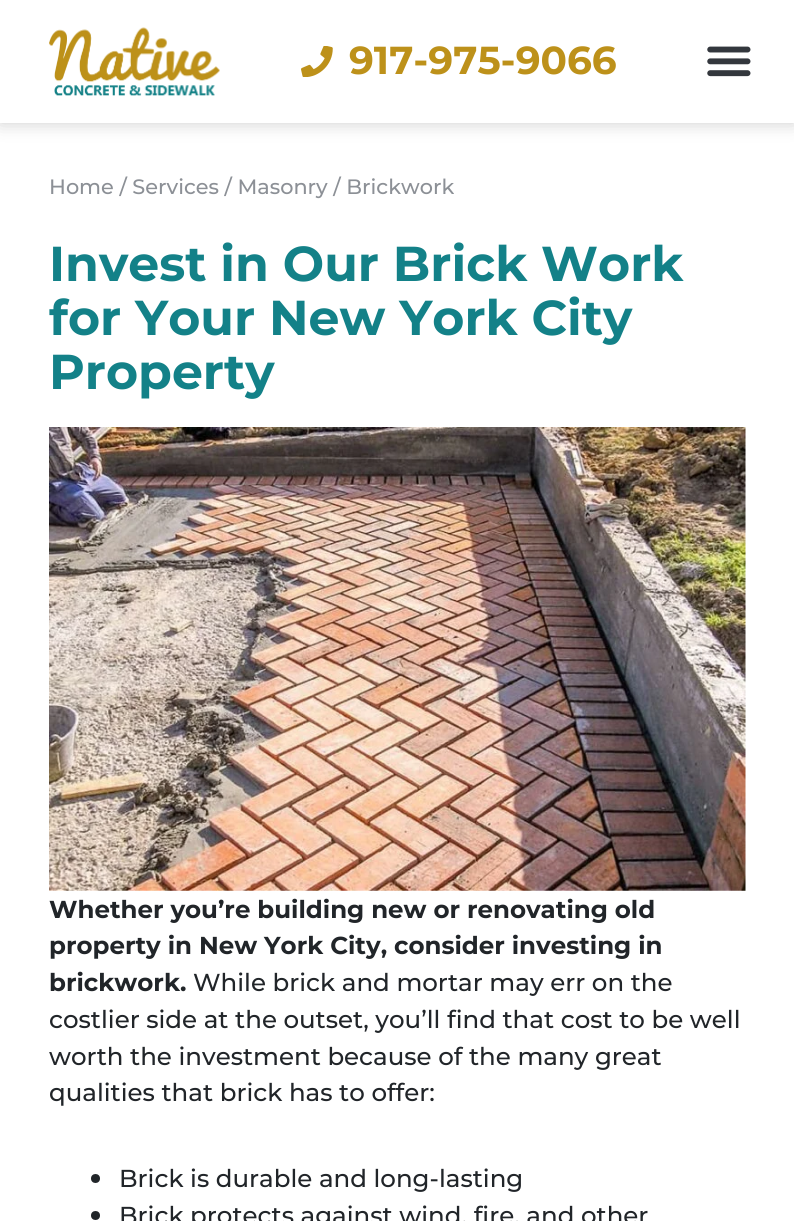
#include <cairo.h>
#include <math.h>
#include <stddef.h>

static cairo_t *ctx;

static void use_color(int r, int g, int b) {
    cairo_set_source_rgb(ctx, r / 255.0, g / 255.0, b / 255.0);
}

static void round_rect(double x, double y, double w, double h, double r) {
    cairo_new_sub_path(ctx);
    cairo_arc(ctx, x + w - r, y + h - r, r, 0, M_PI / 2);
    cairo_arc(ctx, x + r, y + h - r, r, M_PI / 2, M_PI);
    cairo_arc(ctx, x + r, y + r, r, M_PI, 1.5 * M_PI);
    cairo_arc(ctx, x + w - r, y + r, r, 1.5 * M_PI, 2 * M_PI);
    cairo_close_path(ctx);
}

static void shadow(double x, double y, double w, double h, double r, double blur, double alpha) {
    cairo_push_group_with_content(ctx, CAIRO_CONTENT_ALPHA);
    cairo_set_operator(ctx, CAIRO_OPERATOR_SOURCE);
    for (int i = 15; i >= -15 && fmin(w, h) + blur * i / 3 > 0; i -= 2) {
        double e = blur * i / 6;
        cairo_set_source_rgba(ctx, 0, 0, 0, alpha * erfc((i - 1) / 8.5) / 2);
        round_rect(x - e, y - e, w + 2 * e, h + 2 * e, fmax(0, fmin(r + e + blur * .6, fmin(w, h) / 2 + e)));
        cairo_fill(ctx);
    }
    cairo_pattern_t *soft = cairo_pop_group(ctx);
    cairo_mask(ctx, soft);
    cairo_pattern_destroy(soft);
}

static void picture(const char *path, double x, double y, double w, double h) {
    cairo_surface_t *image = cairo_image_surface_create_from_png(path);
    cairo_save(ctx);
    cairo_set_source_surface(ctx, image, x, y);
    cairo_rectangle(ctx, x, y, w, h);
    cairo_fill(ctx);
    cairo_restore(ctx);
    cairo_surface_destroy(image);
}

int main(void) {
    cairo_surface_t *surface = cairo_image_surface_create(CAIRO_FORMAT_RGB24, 794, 1221);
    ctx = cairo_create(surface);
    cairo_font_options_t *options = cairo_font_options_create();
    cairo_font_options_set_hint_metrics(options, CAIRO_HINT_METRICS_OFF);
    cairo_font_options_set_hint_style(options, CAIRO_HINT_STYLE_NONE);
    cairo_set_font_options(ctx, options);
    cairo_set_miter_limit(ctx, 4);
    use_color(255, 255, 255);
    cairo_paint(ctx);
    use_color(0, 0, 0);
    shadow(0, 0, 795, 123, 0, 9, 0.2);
    use_color(255, 255, 255);
    cairo_rectangle(ctx, 0, 0, 794, 123);
    cairo_fill(ctx);
    picture("img1.png", 49, 27, 171, 69);
    picture("img2.png", 301, 46, 32, 31);
    cairo_select_font_face(ctx, "Montserrat", CAIRO_FONT_SLANT_NORMAL, CAIRO_FONT_WEIGHT_BOLD);
    cairo_set_font_size(ctx, 39);
    use_color(189, 145, 26);
    cairo_move_to(ctx, 349, 74);
    cairo_show_text(ctx, "917-975-9066");
    picture("img3.png", 707, 46, 44, 31);
    cairo_select_font_face(ctx, "Montserrat Medium", CAIRO_FONT_SLANT_NORMAL, CAIRO_FONT_WEIGHT_NORMAL);
    cairo_set_font_size(ctx, 20.8);
    use_color(140, 144, 150);
    cairo_move_to(ctx, 49, 194);
    cairo_show_text(ctx, "Home / Services / Masonry / Brickwork");
    cairo_select_font_face(ctx, "Montserrat", CAIRO_FONT_SLANT_NORMAL, CAIRO_FONT_WEIGHT_BOLD);
    cairo_set_font_size(ctx, 49);
    use_color(19, 129, 136);
    cairo_move_to(ctx, 49, 281);
    cairo_show_text(ctx, "Invest in Our Brick Work");
    cairo_move_to(ctx, 49, 335);
    cairo_show_text(ctx, "for Your New York City");
    cairo_move_to(ctx, 49, 389);
    cairo_show_text(ctx, "Property");
    picture("img4.png", 49, 427, 697, 464);
    cairo_set_font_size(ctx, 24.5);
    use_color(33, 37, 41);
    cairo_move_to(ctx, 49, 918);
    cairo_show_text(ctx, "Whether you’re building new or renovating old");
    cairo_move_to(ctx, 49, 954);
    cairo_show_text(ctx, "property in New York City, consider investing in");
    cairo_move_to(ctx, 49, 991);
    cairo_show_text(ctx, "brickwork.");
    cairo_select_font_face(ctx, "Montserrat Medium", CAIRO_FONT_SLANT_NORMAL, CAIRO_FONT_WEIGHT_NORMAL);
    cairo_move_to(ctx, 193, 991);
    cairo_show_text(ctx, "While brick and mortar may err on the");
    cairo_move_to(ctx, 49, 1028);
    cairo_show_text(ctx, "costlier side at the outset, you’ll find that cost to be well");
    cairo_move_to(ctx, 49, 1065);
    cairo_show_text(ctx, "worth the investment because of the many great");
    cairo_move_to(ctx, 49, 1101);
    cairo_show_text(ctx, "qualities that brick has to offer:");
    cairo_new_path(ctx);
    cairo_arc(ctx, 95.5, 1178.5, 4.5, 0, 2 * M_PI);
    cairo_fill(ctx);
    cairo_move_to(ctx, 119, 1187);
    cairo_show_text(ctx, "Brick is durable and long-lasting");
    cairo_new_path(ctx);
    cairo_arc(ctx, 95.5, 1215.5, 4.5, 0, 2 * M_PI);
    cairo_fill(ctx);
    cairo_move_to(ctx, 119, 1224);
    cairo_show_text(ctx, "Brick protects against wind, fire, and other");
    cairo_surface_write_to_png(surface, "result.png");
    cairo_font_options_destroy(options);
    cairo_destroy(ctx);
    cairo_surface_destroy(surface);
    return 0;
}
